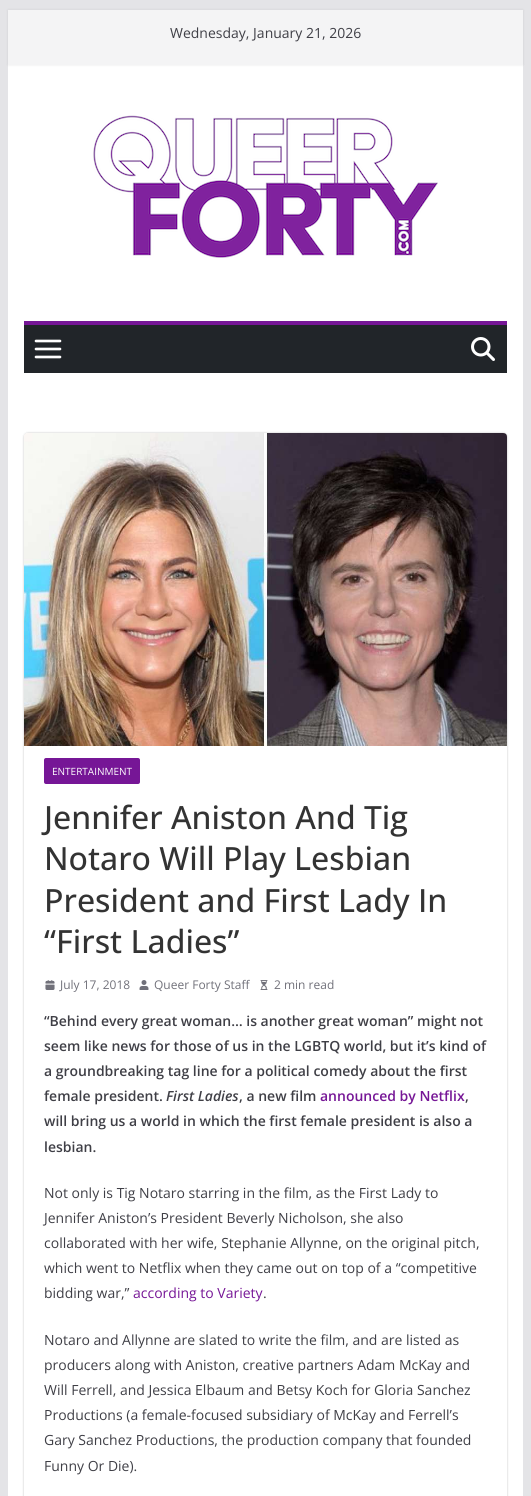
#include <cairo.h>
#include <math.h>
#include <stddef.h>

static cairo_t *ctx;

static void use_color(int r, int g, int b) {
    cairo_set_source_rgb(ctx, r / 255.0, g / 255.0, b / 255.0);
}

static void round_rect(double x, double y, double w, double h, double r) {
    cairo_new_sub_path(ctx);
    cairo_arc(ctx, x + w - r, y + h - r, r, 0, M_PI / 2);
    cairo_arc(ctx, x + r, y + h - r, r, M_PI / 2, M_PI);
    cairo_arc(ctx, x + r, y + r, r, M_PI, 1.5 * M_PI);
    cairo_arc(ctx, x + w - r, y + r, r, 1.5 * M_PI, 2 * M_PI);
    cairo_close_path(ctx);
}

static void shadow(double x, double y, double w, double h, double r, double blur, double alpha) {
    cairo_push_group_with_content(ctx, CAIRO_CONTENT_ALPHA);
    cairo_set_operator(ctx, CAIRO_OPERATOR_SOURCE);
    for (int i = 15; i >= -15 && fmin(w, h) + blur * i / 3 > 0; i -= 2) {
        double e = blur * i / 6;
        cairo_set_source_rgba(ctx, 0, 0, 0, alpha * erfc((i - 1) / 8.5) / 2);
        round_rect(x - e, y - e, w + 2 * e, h + 2 * e, fmax(0, fmin(r + e + blur * .6, fmin(w, h) / 2 + e)));
        cairo_fill(ctx);
    }
    cairo_pattern_t *soft = cairo_pop_group(ctx);
    cairo_mask(ctx, soft);
    cairo_pattern_destroy(soft);
}

static void picture(const char *path, double x, double y, double w, double h) {
    cairo_surface_t *image = cairo_image_surface_create_from_png(path);
    cairo_save(ctx);
    cairo_set_source_surface(ctx, image, x, y);
    cairo_rectangle(ctx, x, y, w, h);
    cairo_fill(ctx);
    cairo_restore(ctx);
    cairo_surface_destroy(image);
}

int main(void) {
    cairo_surface_t *surface = cairo_image_surface_create(CAIRO_FORMAT_RGB24, 531, 1496);
    ctx = cairo_create(surface);
    cairo_font_options_t *options = cairo_font_options_create();
    cairo_font_options_set_hint_metrics(options, CAIRO_HINT_METRICS_OFF);
    cairo_font_options_set_hint_style(options, CAIRO_HINT_STYLE_NONE);
    cairo_set_font_options(ctx, options);
    cairo_set_miter_limit(ctx, 4);
    use_color(228, 228, 231);
    cairo_paint(ctx);
    use_color(255, 255, 255);
    cairo_rectangle(ctx, 8, 65, 515, 1431);
    cairo_fill(ctx);
    use_color(0, 0, 0);
    shadow(8, 10, 515, 55, 0, 1, 0.1);
    use_color(244, 244, 245);
    cairo_rectangle(ctx, 8, 10, 515, 55);
    cairo_fill(ctx);
    cairo_select_font_face(ctx, "Open Sans", CAIRO_FONT_SLANT_NORMAL, CAIRO_FONT_WEIGHT_NORMAL);
    cairo_set_font_size(ctx, 14);
    use_color(63, 63, 70);
    cairo_move_to(ctx, 170, 38);
    cairo_show_text(ctx, "Wednesday, January 21, 2026");
    picture("img1.png", 93, 115, 345, 143);
    use_color(33, 37, 41);
    cairo_rectangle(ctx, 24, 325, 483, 48);
    cairo_fill(ctx);
    use_color(118, 22, 150);
    cairo_rectangle(ctx, 24, 321, 483, 4);
    cairo_fill(ctx);
    picture("img2.png", 34, 339, 28, 20);
    picture("img3.png", 471, 337, 24, 24);
    cairo_save(ctx);
    cairo_set_fill_rule(ctx, CAIRO_FILL_RULE_EVEN_ODD);
    cairo_new_path(ctx);
    cairo_move_to(ctx, 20, 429);
    cairo_line_to(ctx, 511, 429);
    cairo_line_to(ctx, 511, 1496);
    cairo_line_to(ctx, 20, 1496);
    cairo_close_path(ctx);
    cairo_move_to(ctx, 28, 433);
    cairo_line_to(ctx, 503, 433);
    cairo_curve_to(ctx, 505, 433, 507, 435, 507, 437);
    cairo_line_to(ctx, 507, 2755);
    cairo_curve_to(ctx, 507, 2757, 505, 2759, 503, 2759);
    cairo_line_to(ctx, 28, 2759);
    cairo_curve_to(ctx, 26, 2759, 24, 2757, 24, 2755);
    cairo_line_to(ctx, 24, 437);
    cairo_curve_to(ctx, 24, 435, 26, 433, 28, 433);
    cairo_close_path(ctx);
    cairo_clip(ctx);
    use_color(0, 0, 0);
    shadow(24, 433, 483, 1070, 4, 1, 0.24);
    cairo_restore(ctx);
    picture("img4.png", 24, 433, 483, 313);
    round_rect(44, 758, 96, 26, 2);
    cairo_fill(ctx);
    cairo_set_font_size(ctx, 10);
    use_color(255, 255, 255);
    cairo_move_to(ctx, 52, 775);
    cairo_show_text(ctx, "ENTERTAINMENT");
    cairo_select_font_face(ctx, "Open Sans Medium", CAIRO_FONT_SLANT_NORMAL, CAIRO_FONT_WEIGHT_NORMAL);
    cairo_set_font_size(ctx, 32);
    use_color(51, 51, 51);
    cairo_move_to(ctx, 44, 829);
    cairo_show_text(ctx, "Jennifer Aniston And Tig");
    cairo_move_to(ctx, 44, 870);
    cairo_show_text(ctx, "Notaro Will Play Lesbian");
    cairo_move_to(ctx, 44, 912);
    cairo_show_text(ctx, "President and First Lady In");
    cairo_move_to(ctx, 44, 953);
    cairo_show_text(ctx, "“First Ladies”");
    picture("img5.png", 45, 980, 10, 10);
    cairo_select_font_face(ctx, "Open Sans", CAIRO_FONT_SLANT_NORMAL, CAIRO_FONT_WEIGHT_NORMAL);
    cairo_set_font_size(ctx, 12);
    use_color(113, 113, 122);
    cairo_move_to(ctx, 60, 989);
    cairo_show_text(ctx, "July 17, 2018");
    picture("img6.png", 139, 980, 10, 10);
    cairo_move_to(ctx, 154, 989);
    cairo_show_text(ctx, "Queer Forty Staff");
    picture("img7.png", 260, 980, 8, 10);
    cairo_move_to(ctx, 274, 989);
    cairo_show_text(ctx, "2 min read");
    cairo_select_font_face(ctx, "Open Sans SemiBold", CAIRO_FONT_SLANT_NORMAL, CAIRO_FONT_WEIGHT_NORMAL);
    cairo_set_font_size(ctx, 14);
    use_color(63, 63, 70);
    cairo_move_to(ctx, 44, 1026);
    cairo_show_text(ctx, "“Behind every great woman… is another great woman” might not");
    cairo_move_to(ctx, 44, 1051);
    cairo_show_text(ctx, "seem like news for those of us in the LGBTQ world, but it’s kind of");
    cairo_move_to(ctx, 44, 1076);
    cairo_show_text(ctx, "a groundbreaking tag line for a political comedy about the first");
    cairo_move_to(ctx, 44, 1101);
    cairo_show_text(ctx, "female president.");
    cairo_select_font_face(ctx, "Open Sans SemiBold", CAIRO_FONT_SLANT_ITALIC, CAIRO_FONT_WEIGHT_NORMAL);
    cairo_move_to(ctx, 166, 1101);
    cairo_show_text(ctx, "First Ladies");
    cairo_select_font_face(ctx, "Open Sans SemiBold", CAIRO_FONT_SLANT_NORMAL, CAIRO_FONT_WEIGHT_NORMAL);
    cairo_move_to(ctx, 239, 1101);
    cairo_show_text(ctx, ", a new film");
    use_color(118, 22, 150);
    cairo_move_to(ctx, 320, 1101);
    cairo_show_text(ctx, "announced by Netflix");
    use_color(63, 63, 70);
    cairo_move_to(ctx, 465, 1101);
    cairo_show_text(ctx, ",");
    cairo_move_to(ctx, 44, 1126);
    cairo_show_text(ctx, "will bring us a world in which the first female president is also a");
    cairo_move_to(ctx, 44, 1152);
    cairo_show_text(ctx, "lesbian.");
    cairo_select_font_face(ctx, "Open Sans", CAIRO_FONT_SLANT_NORMAL, CAIRO_FONT_WEIGHT_NORMAL);
    cairo_move_to(ctx, 44, 1198);
    cairo_show_text(ctx, "Not only is Tig Notaro starring in the film, as the First Lady to");
    cairo_move_to(ctx, 44, 1223);
    cairo_show_text(ctx, "Jennifer Aniston’s President Beverly Nicholson, she also");
    cairo_move_to(ctx, 44, 1248);
    cairo_show_text(ctx, "collaborated with her wife, Stephanie Allynne, on the original pitch,");
    cairo_move_to(ctx, 44, 1273);
    cairo_show_text(ctx, "which went to Netflix when they came out on top of a “competitive");
    cairo_move_to(ctx, 44, 1298);
    cairo_show_text(ctx, "bidding war,”");
    use_color(118, 22, 150);
    cairo_move_to(ctx, 133, 1298);
    cairo_show_text(ctx, "according to Variety");
    use_color(63, 63, 70);
    cairo_move_to(ctx, 263, 1298);
    cairo_show_text(ctx, ".");
    cairo_move_to(ctx, 44, 1345);
    cairo_show_text(ctx, "Notaro and Allynne are slated to write the film, and are listed as");
    cairo_move_to(ctx, 44, 1370);
    cairo_show_text(ctx, "producers along with Aniston, creative partners Adam McKay and");
    cairo_move_to(ctx, 44, 1395);
    cairo_show_text(ctx, "Will Ferrell, and Jessica Elbaum and Betsy Koch for Gloria Sanchez");
    cairo_move_to(ctx, 44, 1420);
    cairo_show_text(ctx, "Productions (a female-focused subsidiary of McKay and Ferrell’s");
    cairo_move_to(ctx, 44, 1445);
    cairo_show_text(ctx, "Gary Sanchez Productions, the production company that founded");
    cairo_move_to(ctx, 44, 1471);
    cairo_show_text(ctx, "Funny Or Die).");
    cairo_surface_write_to_png(surface, "result.png");
    cairo_font_options_destroy(options);
    cairo_destroy(ctx);
    cairo_surface_destroy(surface);
    return 0;
}
